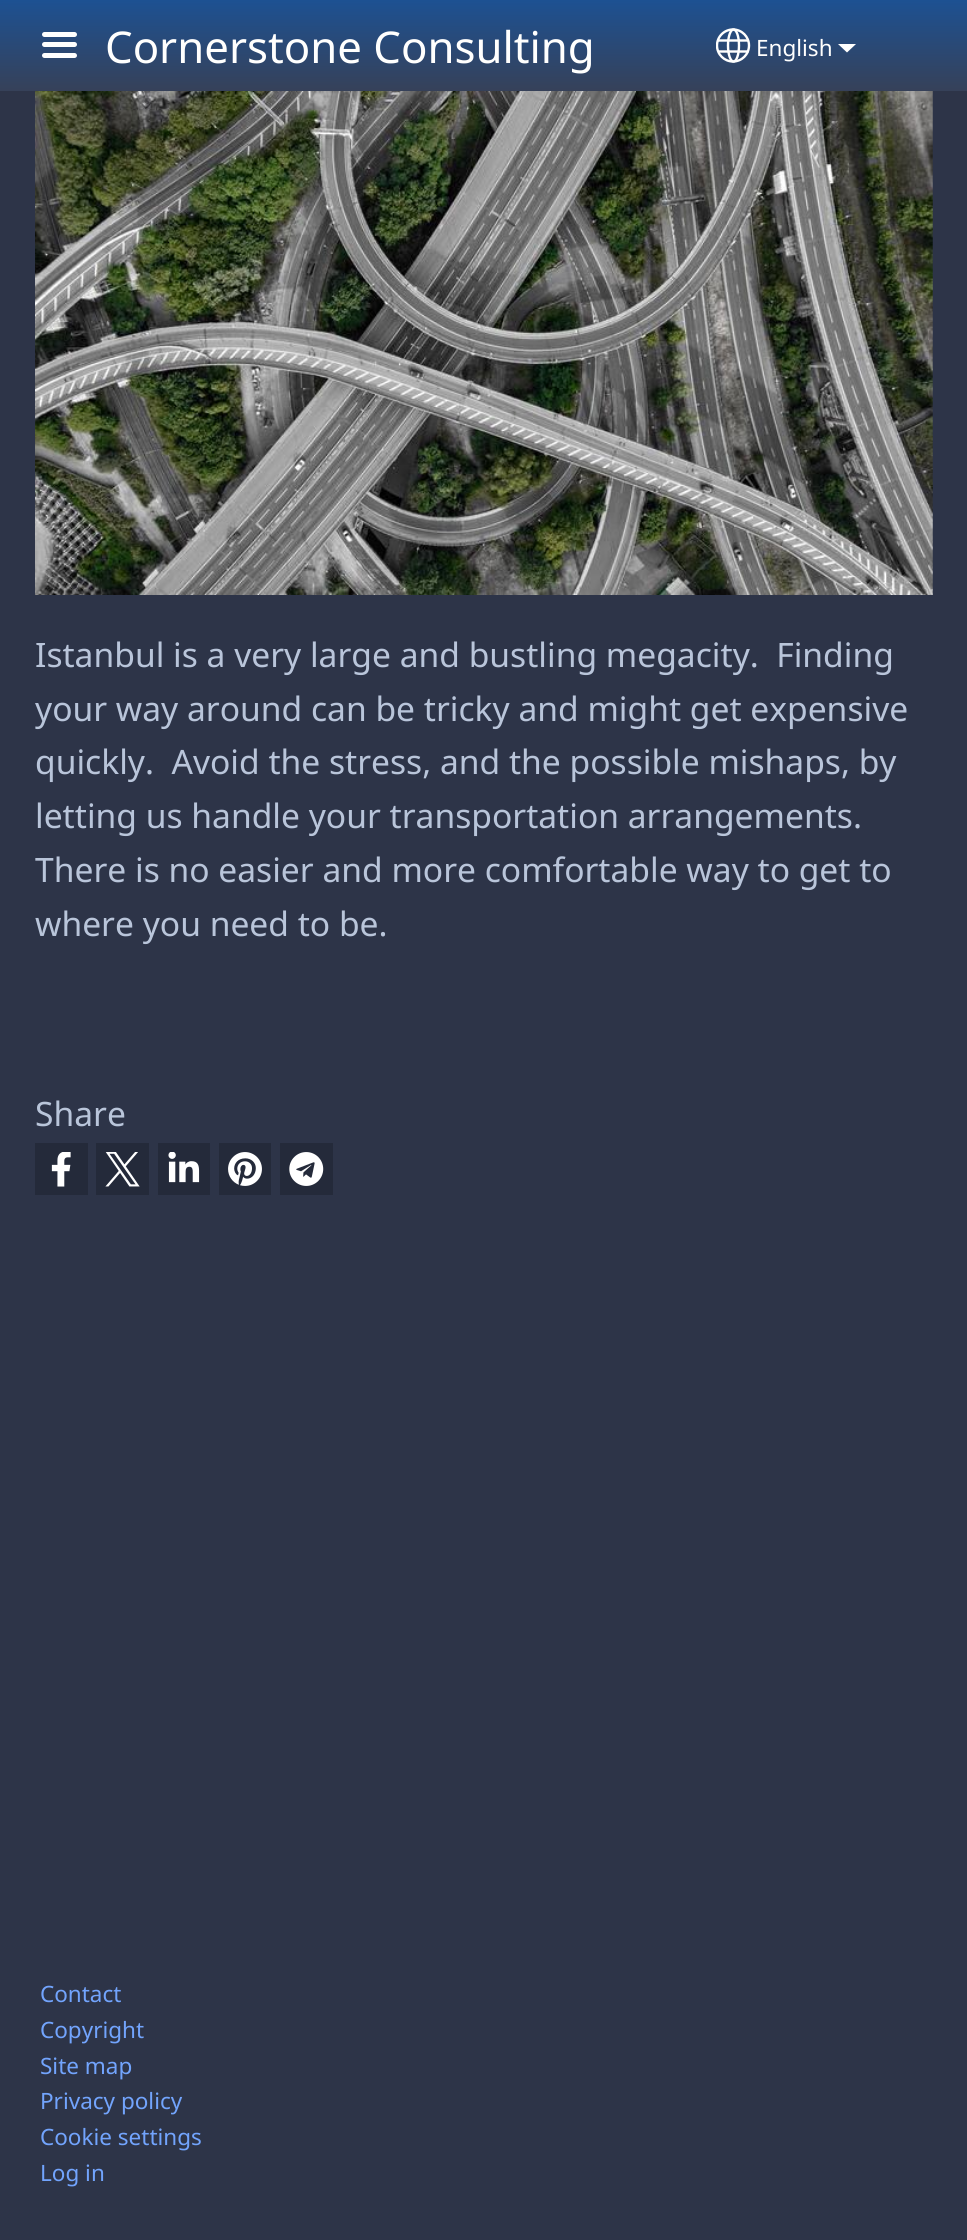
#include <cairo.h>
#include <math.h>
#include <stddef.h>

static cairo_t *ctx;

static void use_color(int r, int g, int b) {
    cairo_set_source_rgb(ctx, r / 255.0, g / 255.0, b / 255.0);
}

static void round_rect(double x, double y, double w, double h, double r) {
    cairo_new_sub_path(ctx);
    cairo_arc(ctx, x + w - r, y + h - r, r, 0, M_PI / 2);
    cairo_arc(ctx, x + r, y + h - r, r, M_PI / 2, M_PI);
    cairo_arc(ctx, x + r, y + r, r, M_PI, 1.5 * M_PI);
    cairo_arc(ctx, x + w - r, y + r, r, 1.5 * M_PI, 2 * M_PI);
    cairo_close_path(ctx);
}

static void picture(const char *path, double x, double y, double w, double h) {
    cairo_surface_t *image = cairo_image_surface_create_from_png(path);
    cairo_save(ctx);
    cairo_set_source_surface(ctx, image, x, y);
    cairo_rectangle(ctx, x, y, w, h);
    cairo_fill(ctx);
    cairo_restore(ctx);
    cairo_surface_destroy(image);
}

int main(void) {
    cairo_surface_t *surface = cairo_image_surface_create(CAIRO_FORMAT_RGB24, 967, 2240);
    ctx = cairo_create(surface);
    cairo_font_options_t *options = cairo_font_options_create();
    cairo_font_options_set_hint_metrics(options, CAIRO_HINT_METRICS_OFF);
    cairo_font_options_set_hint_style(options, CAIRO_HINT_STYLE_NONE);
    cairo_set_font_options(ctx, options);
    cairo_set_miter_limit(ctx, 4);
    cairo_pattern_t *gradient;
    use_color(45, 52, 72);
    cairo_paint(ctx);
    gradient = cairo_pattern_create_linear(484, 0, 484, 91);
    cairo_pattern_add_color_stop_rgba(gradient, 0, 0.114, 0.318, 0.573, 1);
    cairo_pattern_add_color_stop_rgba(gradient, 1, 0.212, 0.255, 0.349, 1);
    cairo_set_source(ctx, gradient);
    cairo_pattern_destroy(gradient);
    cairo_rectangle(ctx, 0, 0, 967, 91);
    cairo_fill(ctx);
    use_color(255, 255, 254);
    round_rect(42, 32, 35, 5, 2.5);
    cairo_fill(ctx);
    round_rect(42, 42, 35, 5, 2.5);
    cairo_fill(ctx);
    round_rect(42, 53, 35, 5, 2.5);
    cairo_fill(ctx);
    cairo_select_font_face(ctx, "Noto Sans", CAIRO_FONT_SLANT_NORMAL, CAIRO_FONT_WEIGHT_NORMAL);
    cairo_set_font_size(ctx, 43.75);
    cairo_move_to(ctx, 105, 63);
    cairo_show_text(ctx, "Cornerstone Consulting");
    cairo_save(ctx);
    cairo_rectangle(ctx, 716, 18, 35, 45);
    cairo_clip(ctx);
    cairo_arc(ctx, 733, 45.5, 16, 0, 2 * M_PI);
    cairo_set_line_width(ctx, 2.4);
    cairo_stroke(ctx);
    cairo_restore(ctx);
    cairo_new_path(ctx);
    cairo_move_to(ctx, 733.5, 29.5);
    cairo_curve_to(ctx, 736.5, 29.5, 739, 36.5, 739, 45.5);
    cairo_curve_to(ctx, 739, 54.5, 736.5, 61.5, 733.5, 61.5);
    cairo_curve_to(ctx, 730.5, 61.5, 728, 54.5, 728, 45.5);
    cairo_curve_to(ctx, 728, 36.5, 730.5, 29.5, 733.5, 29.5);
    cairo_close_path(ctx);
    cairo_set_line_width(ctx, 2.4);
    cairo_stroke(ctx);
    cairo_new_path(ctx);
    cairo_move_to(ctx, 718, 51.5);
    cairo_line_to(ctx, 748.5, 51.5);
    cairo_move_to(ctx, 718, 40.5);
    cairo_line_to(ctx, 748.5, 40.5);
    cairo_stroke(ctx);
    cairo_set_font_size(ctx, 22.5);
    cairo_move_to(ctx, 756, 56);
    cairo_show_text(ctx, "English");
    cairo_new_path(ctx);
    cairo_move_to(ctx, 838, 44);
    cairo_line_to(ctx, 856, 44);
    cairo_line_to(ctx, 847, 52.5);
    cairo_close_path(ctx);
    cairo_fill(ctx);
    picture("img1.png", 35, 91, 898, 504);
    cairo_set_font_size(ctx, 33.6);
    use_color(185, 197, 218);
    cairo_move_to(ctx, 35, 667);
    cairo_show_text(ctx, "Istanbul is a very large and bustling megacity.  Finding");
    cairo_move_to(ctx, 35, 721);
    cairo_show_text(ctx, "your way around can be tricky and might get expensive");
    cairo_move_to(ctx, 35, 774);
    cairo_show_text(ctx, "quickly.  Avoid the stress, and the possible mishaps, by");
    cairo_move_to(ctx, 35, 828);
    cairo_show_text(ctx, "letting us handle your transportation arrangements.");
    cairo_move_to(ctx, 35, 882);
    cairo_show_text(ctx, "There is no easier and more comfortable way to get to");
    cairo_move_to(ctx, 35, 936);
    cairo_show_text(ctx, "where you need to be.");
    cairo_move_to(ctx, 35, 1126);
    cairo_show_text(ctx, "Share");
    use_color(36, 42, 58);
    cairo_rectangle(ctx, 35, 1143, 53, 52);
    cairo_fill(ctx);
    picture("img2.png", 51, 1152, 20, 35);
    cairo_rectangle(ctx, 96, 1143, 53, 52);
    cairo_fill(ctx);
    picture("img3.png", 105, 1152, 35, 35);
    cairo_rectangle(ctx, 158, 1143, 52, 52);
    cairo_fill(ctx);
    picture("img4.png", 168, 1152, 32, 31);
    cairo_rectangle(ctx, 219, 1143, 52, 52);
    cairo_fill(ctx);
    picture("img5.png", 228, 1152, 34, 34);
    cairo_rectangle(ctx, 280, 1143, 53, 52);
    cairo_fill(ctx);
    picture("img6.png", 289, 1152, 35, 34);
    cairo_set_font_size(ctx, 22.5);
    use_color(114, 164, 253);
    cairo_move_to(ctx, 40, 2002);
    cairo_show_text(ctx, "Contact");
    cairo_move_to(ctx, 40, 2038);
    cairo_show_text(ctx, "Copyright");
    cairo_move_to(ctx, 40, 2074);
    cairo_show_text(ctx, "Site map");
    cairo_move_to(ctx, 40, 2109);
    cairo_show_text(ctx, "Privacy policy");
    cairo_move_to(ctx, 40, 2145);
    cairo_show_text(ctx, "Cookie settings");
    cairo_move_to(ctx, 40, 2181);
    cairo_show_text(ctx, "Log in");
    cairo_surface_write_to_png(surface, "result.png");
    cairo_font_options_destroy(options);
    cairo_destroy(ctx);
    cairo_surface_destroy(surface);
    return 0;
}
